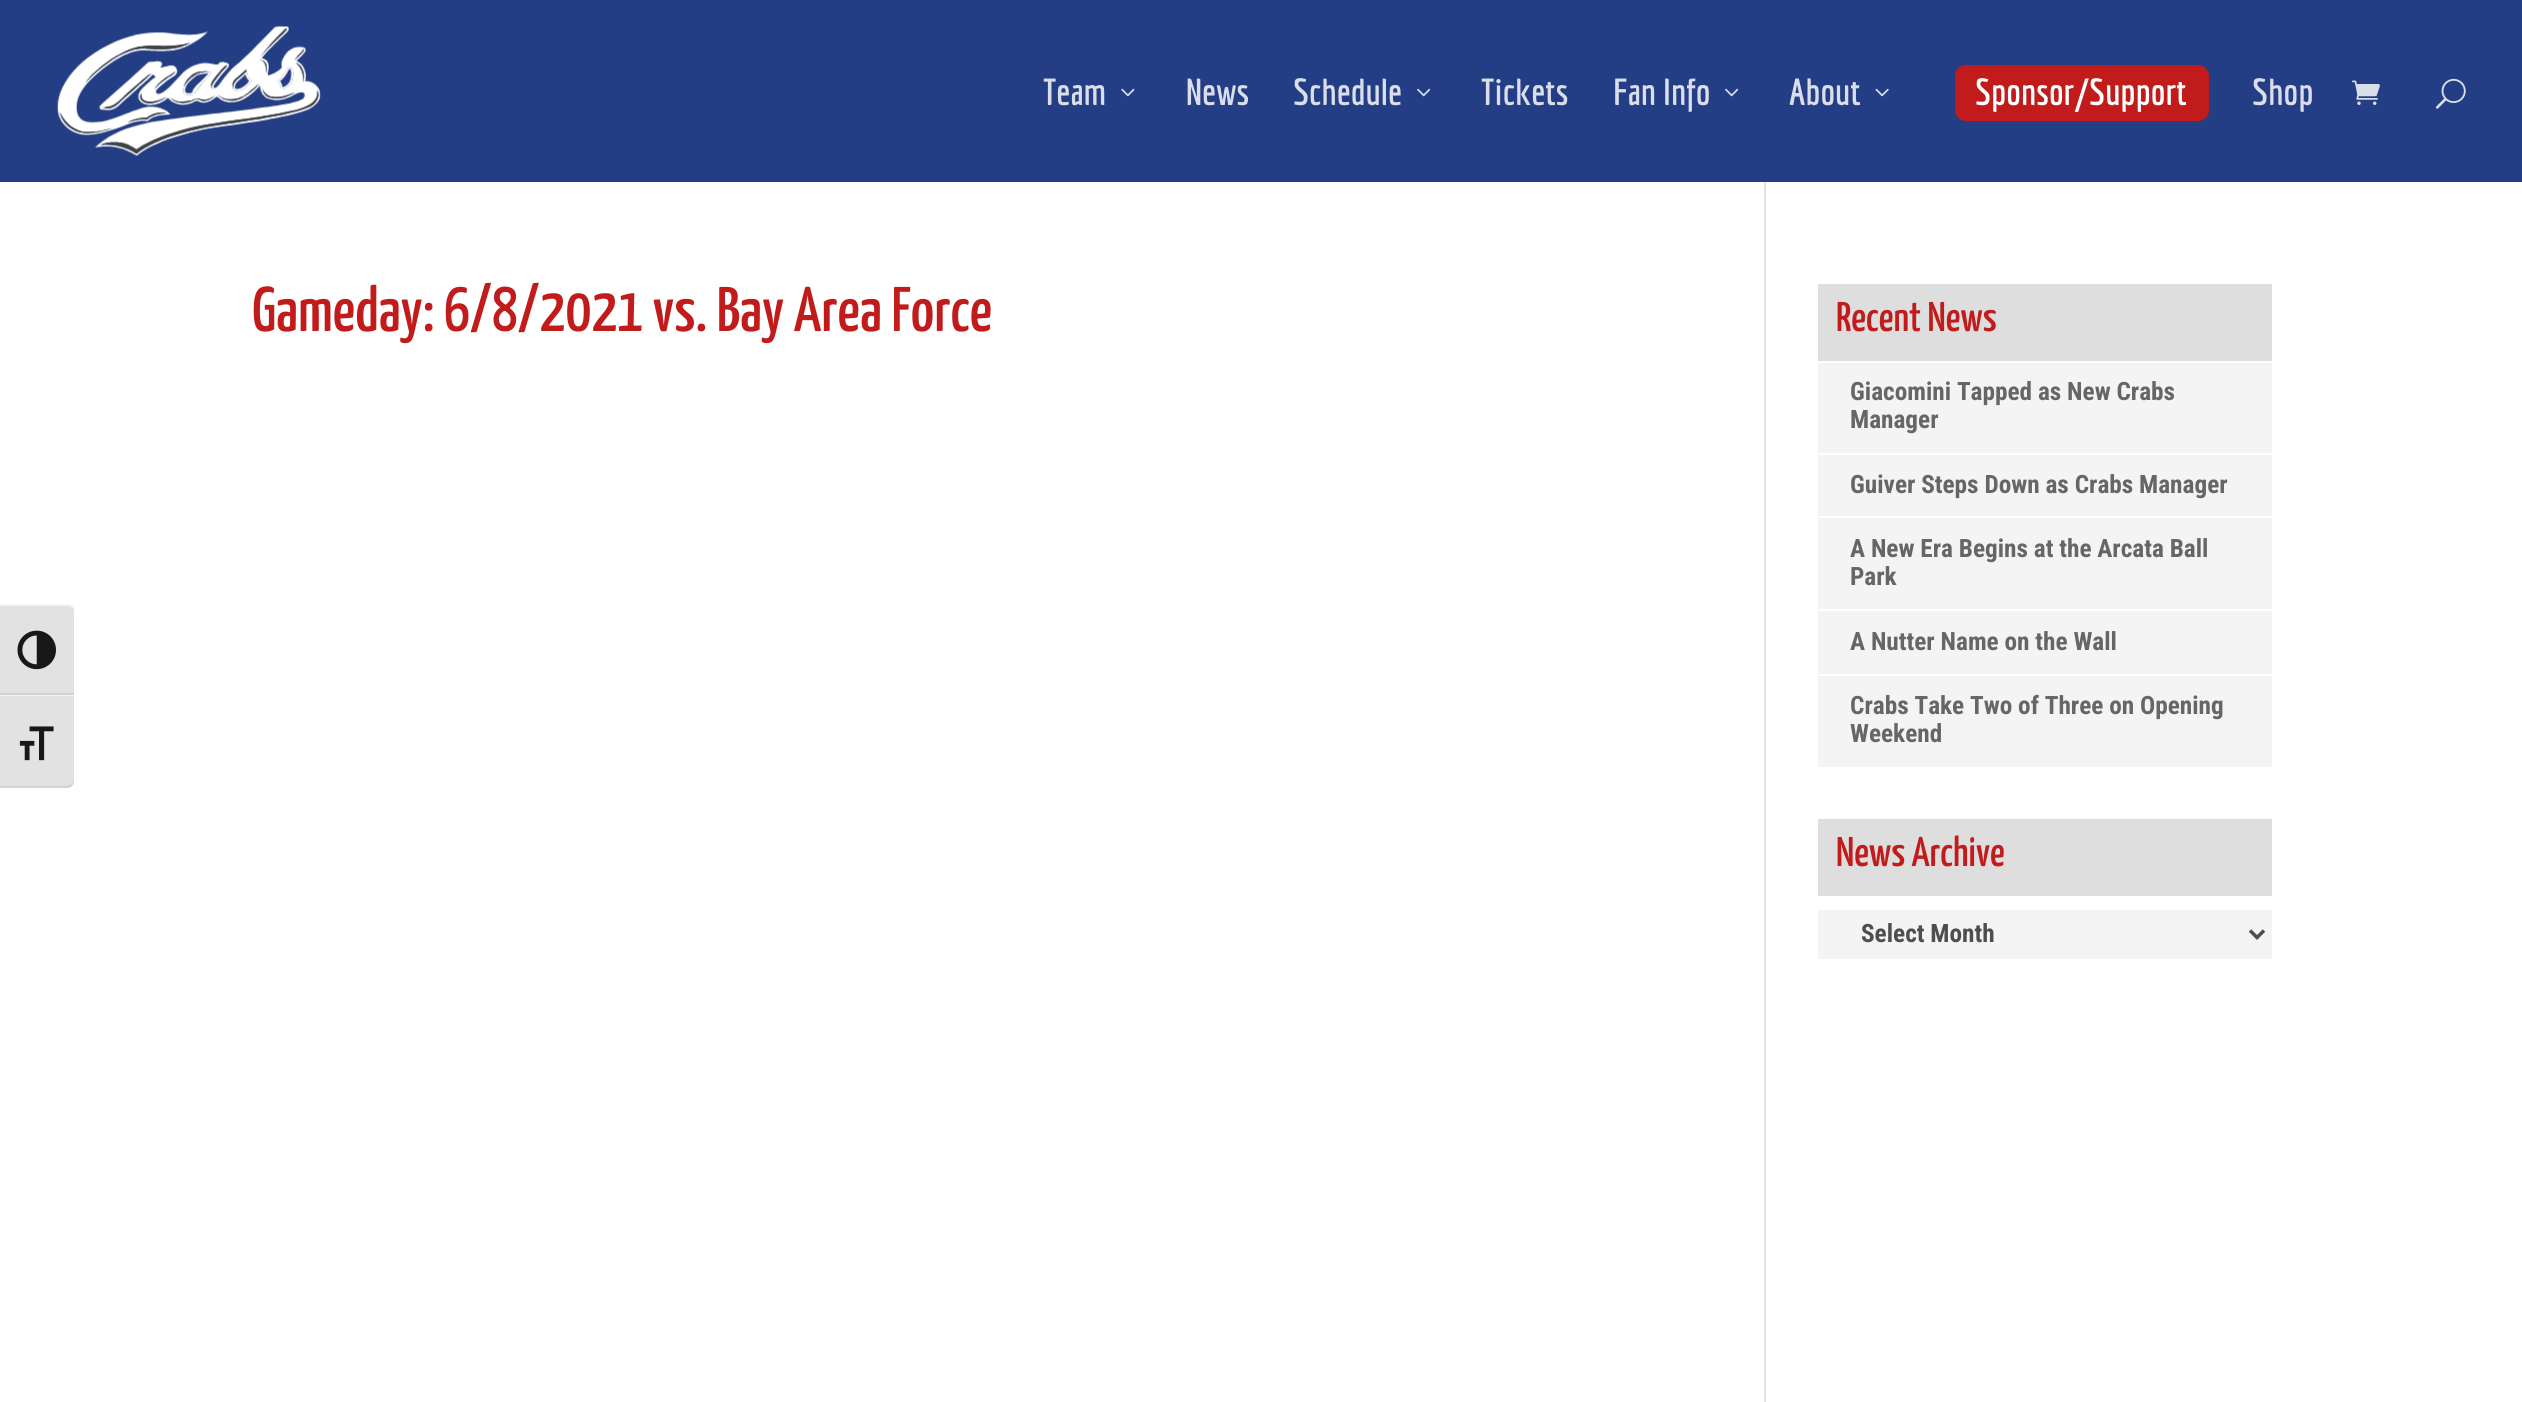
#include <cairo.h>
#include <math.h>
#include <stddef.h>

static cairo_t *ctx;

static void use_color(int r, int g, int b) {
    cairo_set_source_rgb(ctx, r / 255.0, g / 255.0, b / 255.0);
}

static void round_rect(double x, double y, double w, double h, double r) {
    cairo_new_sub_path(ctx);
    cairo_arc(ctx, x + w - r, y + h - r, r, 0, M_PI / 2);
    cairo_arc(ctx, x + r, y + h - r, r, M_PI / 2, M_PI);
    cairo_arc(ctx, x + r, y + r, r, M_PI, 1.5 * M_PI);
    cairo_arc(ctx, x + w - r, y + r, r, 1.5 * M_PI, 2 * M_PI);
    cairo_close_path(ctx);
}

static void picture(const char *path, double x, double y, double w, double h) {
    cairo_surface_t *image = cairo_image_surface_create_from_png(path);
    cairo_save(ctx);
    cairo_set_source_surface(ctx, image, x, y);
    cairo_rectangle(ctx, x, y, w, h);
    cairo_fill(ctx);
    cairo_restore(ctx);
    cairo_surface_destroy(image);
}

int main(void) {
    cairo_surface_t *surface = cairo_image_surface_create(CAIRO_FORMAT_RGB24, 2522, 1402);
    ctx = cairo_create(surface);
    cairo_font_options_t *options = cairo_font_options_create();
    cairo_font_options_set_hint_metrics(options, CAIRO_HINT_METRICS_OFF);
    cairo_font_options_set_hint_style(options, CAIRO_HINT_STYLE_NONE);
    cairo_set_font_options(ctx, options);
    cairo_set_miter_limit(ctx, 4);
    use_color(255, 255, 255);
    cairo_paint(ctx);
    use_color(226, 226, 226);
    cairo_new_path(ctx);
    cairo_move_to(ctx, 0, 604);
    cairo_line_to(ctx, 67, 604);
    cairo_curve_to(ctx, 71, 604, 74, 607, 74, 611);
    cairo_line_to(ctx, 74, 695);
    cairo_line_to(ctx, 0, 695);
    cairo_close_path(ctx);
    cairo_fill(ctx);
    use_color(245, 245, 245);
    cairo_new_path(ctx);
    cairo_move_to(ctx, 0, 606);
    cairo_line_to(ctx, 66, 606);
    cairo_curve_to(ctx, 69, 606, 72, 607, 74, 609);
    cairo_curve_to(ctx, 72, 606, 69, 604, 66, 604);
    cairo_line_to(ctx, 0, 604);
    cairo_close_path(ctx);
    cairo_fill(ctx);
    use_color(210, 210, 210);
    cairo_rectangle(ctx, 0, 693, 74, 2);
    cairo_fill(ctx);
    picture("img1.png", 17, 630, 39, 40);
    use_color(226, 226, 226);
    cairo_new_path(ctx);
    cairo_move_to(ctx, 0, 695);
    cairo_line_to(ctx, 74, 695);
    cairo_line_to(ctx, 74, 781);
    cairo_curve_to(ctx, 74, 785, 71, 788, 67, 788);
    cairo_line_to(ctx, 0, 788);
    cairo_close_path(ctx);
    cairo_fill(ctx);
    use_color(245, 245, 245);
    cairo_rectangle(ctx, 0, 695, 74, 1);
    cairo_fill(ctx);
    use_color(210, 210, 210);
    cairo_new_path(ctx);
    cairo_move_to(ctx, 74, 782);
    cairo_curve_to(ctx, 72, 784, 69, 786, 66, 786);
    cairo_line_to(ctx, 0, 786);
    cairo_line_to(ctx, 0, 788);
    cairo_line_to(ctx, 69, 788);
    cairo_curve_to(ctx, 71, 787, 73, 785, 74, 783);
    cairo_close_path(ctx);
    cairo_fill(ctx);
    picture("img2.png", 19, 726, 35, 35);
    use_color(35, 62, 132);
    cairo_rectangle(ctx, 0, 0, 2522, 182);
    cairo_fill(ctx);
    picture("img3.png", 57, 26, 264, 130);
    cairo_select_font_face(ctx, "Economica", CAIRO_FONT_SLANT_NORMAL, CAIRO_FONT_WEIGHT_BOLD);
    cairo_set_font_size(ctx, 36.75);
    use_color(218, 222, 234);
    cairo_move_to(ctx, 1043, 105);
    cairo_show_text(ctx, "Team");
    picture("img4.png", 1121, 88, 14, 9);
    cairo_move_to(ctx, 1186, 105);
    cairo_show_text(ctx, "News");
    cairo_move_to(ctx, 1293, 105);
    cairo_show_text(ctx, "Schedule");
    picture("img5.png", 1417, 88, 14, 9);
    cairo_move_to(ctx, 1481, 105);
    cairo_show_text(ctx, "Tickets");
    cairo_move_to(ctx, 1613, 105);
    cairo_show_text(ctx, "Fan Info");
    picture("img5.png", 1725, 88, 14, 9);
    cairo_move_to(ctx, 1789, 105);
    cairo_show_text(ctx, "About");
    picture("img6.png", 1875, 88, 14, 9);
    use_color(193, 27, 27);
    round_rect(1955, 65, 254, 56, 11);
    cairo_fill(ctx);
    use_color(255, 255, 255);
    cairo_move_to(ctx, 1975, 105);
    cairo_show_text(ctx, "Sponsor/Support");
    use_color(218, 222, 234);
    cairo_move_to(ctx, 2252, 105);
    cairo_show_text(ctx, "Shop");
    picture("img7.png", 2352, 80, 28, 25);
    picture("img8.png", 2435, 78, 31, 31);
    use_color(226, 226, 226);
    cairo_rectangle(ctx, 1764, 182, 2, 1220);
    cairo_fill(ctx);
    cairo_select_font_face(ctx, "Yanone Kaffeesatz ExtraLight", CAIRO_FONT_SLANT_NORMAL, CAIRO_FONT_WEIGHT_NORMAL);
    cairo_set_font_size(ctx, 63);
    use_color(193, 27, 27);
    cairo_move_to(ctx, 252, 331);
    cairo_show_text(ctx, "Gameday: 6/8/2021 vs. Bay Area Force");
    use_color(222, 222, 222);
    cairo_rectangle(ctx, 1818, 284, 454, 77);
    cairo_fill(ctx);
    cairo_set_font_size(ctx, 41.5);
    use_color(193, 27, 27);
    cairo_move_to(ctx, 1836, 331);
    cairo_show_text(ctx, "Recent News");
    use_color(244, 244, 244);
    cairo_rectangle(ctx, 1818, 363, 454, 90);
    cairo_fill(ctx);
    cairo_select_font_face(ctx, "Roboto Condensed", CAIRO_FONT_SLANT_NORMAL, CAIRO_FONT_WEIGHT_BOLD);
    cairo_set_font_size(ctx, 25.25);
    use_color(102, 102, 102);
    cairo_move_to(ctx, 1850, 400);
    cairo_show_text(ctx, "Giacomini Tapped as New Crabs");
    cairo_move_to(ctx, 1850, 428);
    cairo_show_text(ctx, "Manager");
    use_color(244, 244, 244);
    cairo_rectangle(ctx, 1818, 455, 454, 61);
    cairo_fill(ctx);
    use_color(102, 102, 102);
    cairo_move_to(ctx, 1850, 493);
    cairo_show_text(ctx, "Guiver Steps Down as Crabs Manager");
    use_color(244, 244, 244);
    cairo_rectangle(ctx, 1818, 518, 454, 91);
    cairo_fill(ctx);
    use_color(102, 102, 102);
    cairo_move_to(ctx, 1850, 557);
    cairo_show_text(ctx, "A New Era Begins at the Arcata Ball");
    cairo_move_to(ctx, 1850, 585);
    cairo_show_text(ctx, "Park");
    use_color(244, 244, 244);
    cairo_rectangle(ctx, 1818, 611, 454, 63);
    cairo_fill(ctx);
    use_color(102, 102, 102);
    cairo_move_to(ctx, 1850, 650);
    cairo_show_text(ctx, "A Nutter Name on the Wall");
    use_color(244, 244, 244);
    cairo_rectangle(ctx, 1818, 676, 454, 91);
    cairo_fill(ctx);
    use_color(102, 102, 102);
    cairo_move_to(ctx, 1850, 714);
    cairo_show_text(ctx, "Crabs Take Two of Three on Opening");
    cairo_move_to(ctx, 1850, 742);
    cairo_show_text(ctx, "Weekend");
    use_color(222, 222, 222);
    cairo_rectangle(ctx, 1818, 819, 454, 77);
    cairo_fill(ctx);
    cairo_select_font_face(ctx, "Yanone Kaffeesatz ExtraLight", CAIRO_FONT_SLANT_NORMAL, CAIRO_FONT_WEIGHT_NORMAL);
    cairo_set_font_size(ctx, 41.5);
    use_color(193, 27, 27);
    cairo_move_to(ctx, 1836, 866);
    cairo_show_text(ctx, "News Archive");
    use_color(244, 244, 244);
    cairo_rectangle(ctx, 1818, 910, 454, 49);
    cairo_fill(ctx);
    cairo_new_path(ctx);
    cairo_move_to(ctx, 2250, 930.5);
    cairo_line_to(ctx, 2257, 937.5);
    cairo_line_to(ctx, 2264, 930.5);
    use_color(78, 78, 78);
    cairo_set_line_width(ctx, 3.5);
    cairo_stroke(ctx);
    cairo_select_font_face(ctx, "Roboto Condensed", CAIRO_FONT_SLANT_NORMAL, CAIRO_FONT_WEIGHT_BOLD);
    cairo_set_font_size(ctx, 25.25);
    cairo_move_to(ctx, 1861, 942);
    cairo_show_text(ctx, "Select Month");
    cairo_surface_write_to_png(surface, "result.png");
    cairo_font_options_destroy(options);
    cairo_destroy(ctx);
    cairo_surface_destroy(surface);
    return 0;
}
